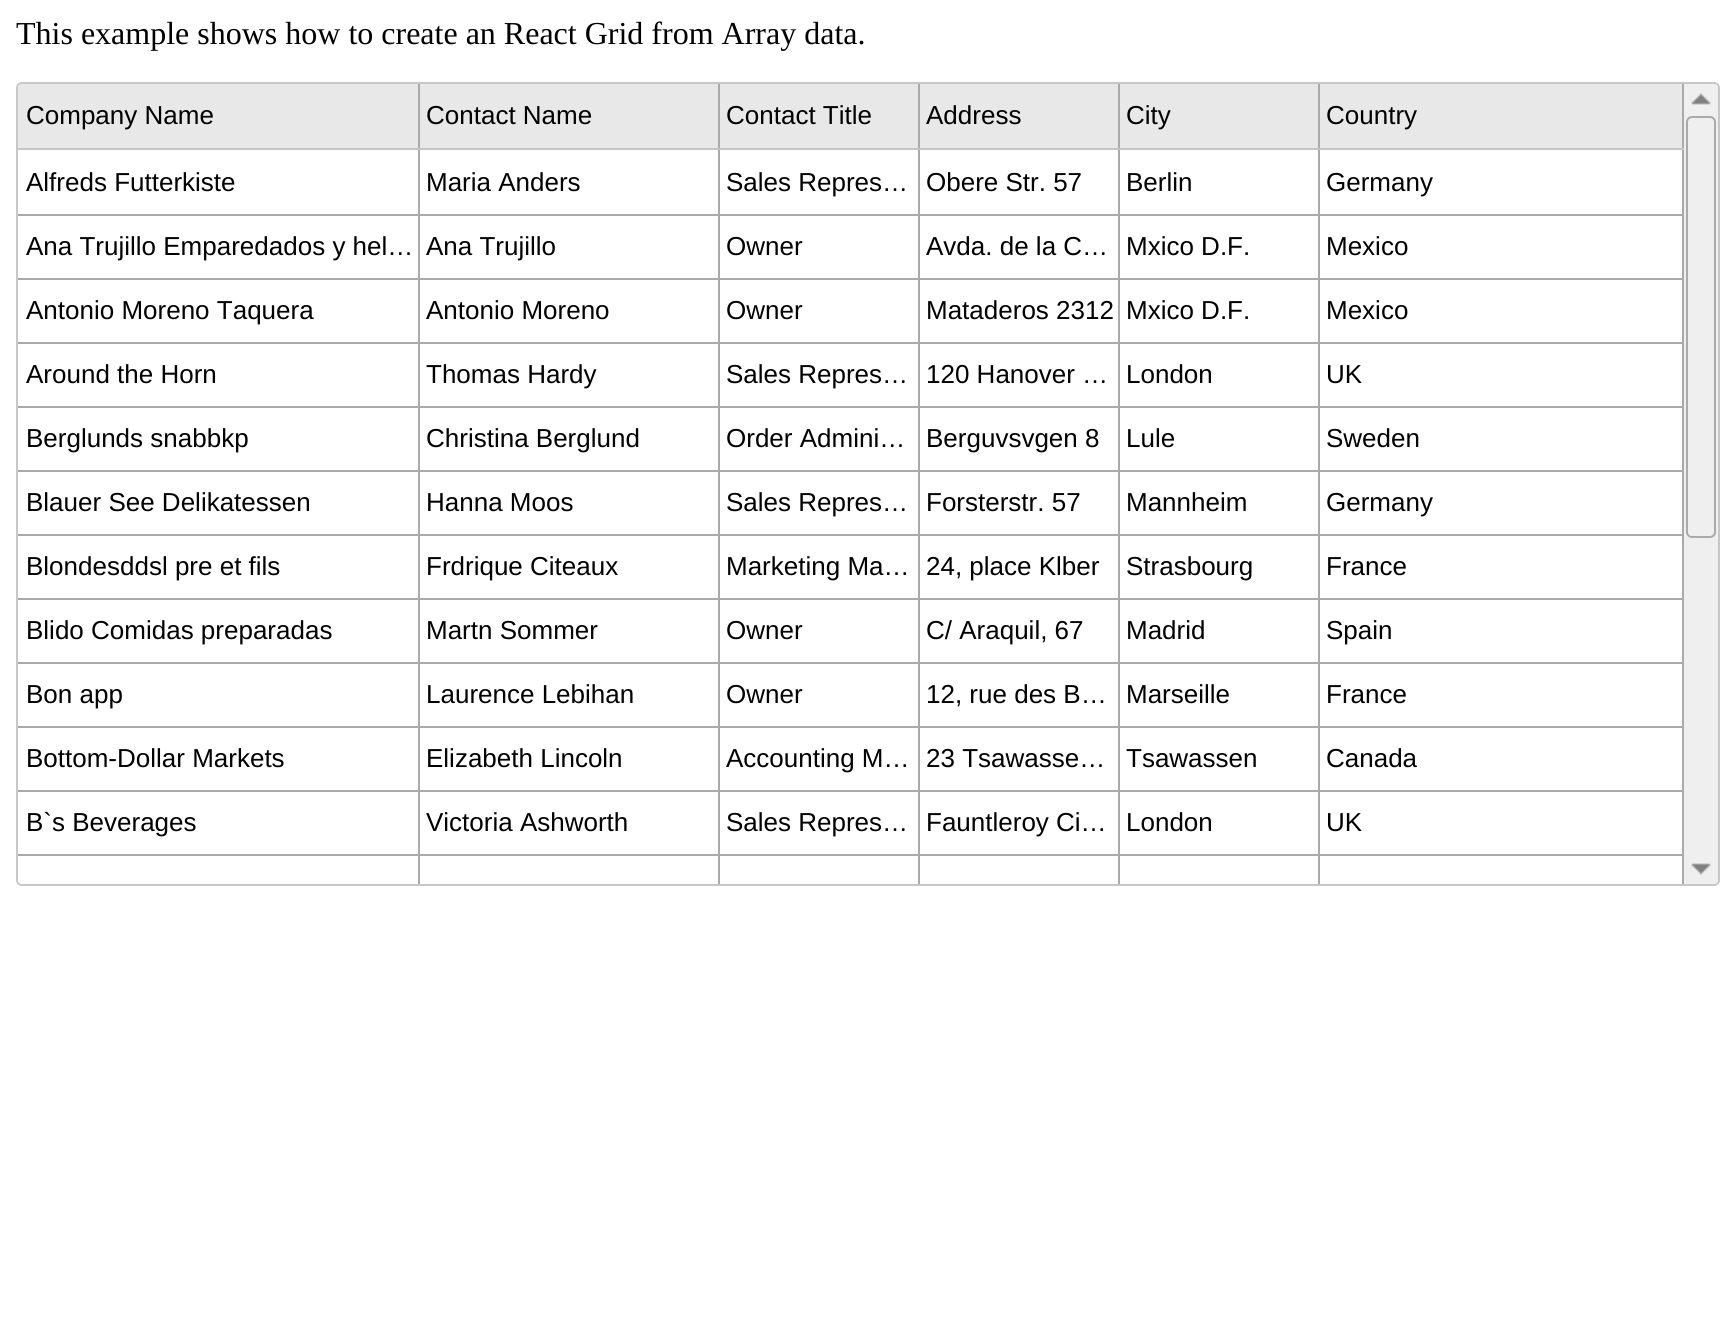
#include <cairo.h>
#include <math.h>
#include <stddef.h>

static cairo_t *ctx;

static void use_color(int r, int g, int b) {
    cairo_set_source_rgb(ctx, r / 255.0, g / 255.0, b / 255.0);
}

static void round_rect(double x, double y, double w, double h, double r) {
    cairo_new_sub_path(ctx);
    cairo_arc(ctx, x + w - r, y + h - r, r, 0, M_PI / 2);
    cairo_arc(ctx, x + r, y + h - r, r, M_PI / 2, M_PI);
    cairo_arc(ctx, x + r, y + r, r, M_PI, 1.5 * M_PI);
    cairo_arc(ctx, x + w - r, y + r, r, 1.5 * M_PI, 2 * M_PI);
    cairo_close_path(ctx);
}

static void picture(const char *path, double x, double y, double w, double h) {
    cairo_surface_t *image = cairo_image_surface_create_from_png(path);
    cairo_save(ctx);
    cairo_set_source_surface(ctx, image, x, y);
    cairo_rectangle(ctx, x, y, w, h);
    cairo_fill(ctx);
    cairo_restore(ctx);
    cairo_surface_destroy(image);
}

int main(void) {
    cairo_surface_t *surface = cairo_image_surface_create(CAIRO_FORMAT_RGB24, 1722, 1331);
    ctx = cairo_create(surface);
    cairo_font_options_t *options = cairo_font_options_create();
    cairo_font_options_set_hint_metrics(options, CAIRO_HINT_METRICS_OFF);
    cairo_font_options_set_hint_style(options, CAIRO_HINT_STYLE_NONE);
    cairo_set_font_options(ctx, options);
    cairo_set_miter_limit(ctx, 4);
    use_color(255, 255, 255);
    cairo_paint(ctx);
    cairo_select_font_face(ctx, "Liberation Serif", CAIRO_FONT_SLANT_NORMAL, CAIRO_FONT_WEIGHT_NORMAL);
    cairo_set_font_size(ctx, 32);
    use_color(0, 0, 0);
    cairo_move_to(ctx, 16, 44);
    cairo_show_text(ctx, "This example shows how to create an React Grid from Array data.");
    round_rect(17, 83, 1702, 802, 5);
    use_color(199, 199, 199);
    cairo_stroke(ctx);
    use_color(232, 232, 232);
    cairo_new_path(ctx);
    cairo_move_to(ctx, 22, 84);
    cairo_line_to(ctx, 1684, 84);
    cairo_line_to(ctx, 1684, 148);
    cairo_line_to(ctx, 18, 148);
    cairo_line_to(ctx, 18, 88);
    cairo_curve_to(ctx, 18, 86, 20, 84, 22, 84);
    cairo_close_path(ctx);
    cairo_fill(ctx);
    use_color(197, 197, 197);
    cairo_rectangle(ctx, 18, 148, 1666, 2);
    cairo_fill(ctx);
    use_color(232, 232, 232);
    cairo_new_path(ctx);
    cairo_move_to(ctx, 22, 84);
    cairo_line_to(ctx, 418, 84);
    cairo_line_to(ctx, 418, 148);
    cairo_line_to(ctx, 18, 148);
    cairo_line_to(ctx, 18, 88);
    cairo_curve_to(ctx, 18, 86, 20, 84, 22, 84);
    cairo_close_path(ctx);
    cairo_fill(ctx);
    use_color(170, 170, 170);
    cairo_rectangle(ctx, 418, 84, 2, 64);
    cairo_fill(ctx);
    cairo_select_font_face(ctx, "Liberation Sans", CAIRO_FONT_SLANT_NORMAL, CAIRO_FONT_WEIGHT_NORMAL);
    cairo_set_font_size(ctx, 26);
    use_color(0, 0, 0);
    cairo_move_to(ctx, 26, 124);
    cairo_show_text(ctx, "Company Name");
    use_color(170, 170, 170);
    cairo_rectangle(ctx, 718, 84, 2, 64);
    cairo_fill(ctx);
    use_color(0, 0, 0);
    cairo_move_to(ctx, 426, 124);
    cairo_show_text(ctx, "Contact Name");
    use_color(170, 170, 170);
    cairo_rectangle(ctx, 918, 84, 2, 64);
    cairo_fill(ctx);
    use_color(0, 0, 0);
    cairo_move_to(ctx, 726, 124);
    cairo_show_text(ctx, "Contact Title");
    use_color(170, 170, 170);
    cairo_rectangle(ctx, 1118, 84, 2, 64);
    cairo_fill(ctx);
    use_color(0, 0, 0);
    cairo_move_to(ctx, 926, 124);
    cairo_show_text(ctx, "Address");
    use_color(170, 170, 170);
    cairo_rectangle(ctx, 1318, 84, 2, 64);
    cairo_fill(ctx);
    use_color(0, 0, 0);
    cairo_move_to(ctx, 1126, 124);
    cairo_show_text(ctx, "City");
    use_color(170, 170, 170);
    cairo_rectangle(ctx, 1682, 84, 2, 64);
    cairo_fill(ctx);
    use_color(0, 0, 0);
    cairo_move_to(ctx, 1326, 124);
    cairo_show_text(ctx, "Country");
    use_color(255, 255, 255);
    cairo_new_path(ctx);
    cairo_move_to(ctx, 18, 150);
    cairo_line_to(ctx, 1684, 150);
    cairo_line_to(ctx, 1684, 884);
    cairo_line_to(ctx, 22, 884);
    cairo_curve_to(ctx, 20, 884, 18, 882, 18, 880);
    cairo_close_path(ctx);
    cairo_fill(ctx);
    cairo_new_path(ctx);
    cairo_move_to(ctx, 18, 854);
    cairo_line_to(ctx, 418, 854);
    cairo_line_to(ctx, 418, 884);
    cairo_line_to(ctx, 22, 884);
    cairo_curve_to(ctx, 20, 884, 18, 882, 18, 880);
    cairo_close_path(ctx);
    cairo_fill(ctx);
    use_color(170, 170, 170);
    cairo_rectangle(ctx, 418, 854, 2, 30);
    cairo_fill(ctx);
    cairo_rectangle(ctx, 718, 854, 2, 30);
    cairo_fill(ctx);
    cairo_rectangle(ctx, 918, 854, 2, 30);
    cairo_fill(ctx);
    cairo_rectangle(ctx, 1118, 854, 2, 30);
    cairo_fill(ctx);
    cairo_rectangle(ctx, 1318, 854, 2, 30);
    cairo_fill(ctx);
    cairo_rectangle(ctx, 1682, 150, 2, 734);
    cairo_fill(ctx);
    cairo_rectangle(ctx, 1318, 854, 366, 2);
    cairo_fill(ctx);
    cairo_rectangle(ctx, 1318, 790, 2, 66);
    cairo_fill(ctx);
    cairo_rectangle(ctx, 1318, 790, 366, 2);
    cairo_fill(ctx);
    cairo_rectangle(ctx, 1318, 726, 2, 66);
    cairo_fill(ctx);
    cairo_rectangle(ctx, 1318, 726, 366, 2);
    cairo_fill(ctx);
    cairo_rectangle(ctx, 1318, 662, 2, 66);
    cairo_fill(ctx);
    cairo_rectangle(ctx, 1318, 662, 366, 2);
    cairo_fill(ctx);
    cairo_rectangle(ctx, 1318, 598, 2, 66);
    cairo_fill(ctx);
    cairo_rectangle(ctx, 1318, 598, 366, 2);
    cairo_fill(ctx);
    cairo_rectangle(ctx, 1318, 534, 2, 66);
    cairo_fill(ctx);
    cairo_rectangle(ctx, 1318, 534, 366, 2);
    cairo_fill(ctx);
    cairo_rectangle(ctx, 1318, 470, 2, 66);
    cairo_fill(ctx);
    cairo_rectangle(ctx, 1318, 470, 366, 2);
    cairo_fill(ctx);
    cairo_rectangle(ctx, 1318, 406, 2, 66);
    cairo_fill(ctx);
    cairo_rectangle(ctx, 1318, 406, 366, 2);
    cairo_fill(ctx);
    cairo_rectangle(ctx, 1318, 342, 2, 66);
    cairo_fill(ctx);
    cairo_rectangle(ctx, 1318, 342, 366, 2);
    cairo_fill(ctx);
    cairo_rectangle(ctx, 1318, 278, 2, 66);
    cairo_fill(ctx);
    cairo_rectangle(ctx, 1318, 278, 366, 2);
    cairo_fill(ctx);
    cairo_rectangle(ctx, 1318, 214, 2, 66);
    cairo_fill(ctx);
    cairo_rectangle(ctx, 1318, 214, 366, 2);
    cairo_fill(ctx);
    cairo_rectangle(ctx, 1318, 150, 2, 66);
    cairo_fill(ctx);
    cairo_rectangle(ctx, 1118, 854, 202, 2);
    cairo_fill(ctx);
    cairo_rectangle(ctx, 1118, 790, 2, 66);
    cairo_fill(ctx);
    cairo_rectangle(ctx, 1118, 790, 202, 2);
    cairo_fill(ctx);
    cairo_rectangle(ctx, 1118, 726, 2, 66);
    cairo_fill(ctx);
    cairo_rectangle(ctx, 1118, 726, 202, 2);
    cairo_fill(ctx);
    cairo_rectangle(ctx, 1118, 662, 2, 66);
    cairo_fill(ctx);
    cairo_rectangle(ctx, 1118, 662, 202, 2);
    cairo_fill(ctx);
    cairo_rectangle(ctx, 1118, 598, 2, 66);
    cairo_fill(ctx);
    cairo_rectangle(ctx, 1118, 598, 202, 2);
    cairo_fill(ctx);
    cairo_rectangle(ctx, 1118, 534, 2, 66);
    cairo_fill(ctx);
    cairo_rectangle(ctx, 1118, 534, 202, 2);
    cairo_fill(ctx);
    cairo_rectangle(ctx, 1118, 470, 2, 66);
    cairo_fill(ctx);
    cairo_rectangle(ctx, 1118, 470, 202, 2);
    cairo_fill(ctx);
    cairo_rectangle(ctx, 1118, 406, 2, 66);
    cairo_fill(ctx);
    cairo_rectangle(ctx, 1118, 406, 202, 2);
    cairo_fill(ctx);
    cairo_rectangle(ctx, 1118, 342, 2, 66);
    cairo_fill(ctx);
    cairo_rectangle(ctx, 1118, 342, 202, 2);
    cairo_fill(ctx);
    cairo_rectangle(ctx, 1118, 278, 2, 66);
    cairo_fill(ctx);
    cairo_rectangle(ctx, 1118, 278, 202, 2);
    cairo_fill(ctx);
    cairo_rectangle(ctx, 1118, 214, 2, 66);
    cairo_fill(ctx);
    cairo_rectangle(ctx, 1118, 214, 202, 2);
    cairo_fill(ctx);
    cairo_rectangle(ctx, 1118, 150, 2, 66);
    cairo_fill(ctx);
    cairo_rectangle(ctx, 918, 854, 202, 2);
    cairo_fill(ctx);
    cairo_rectangle(ctx, 918, 790, 2, 66);
    cairo_fill(ctx);
    cairo_rectangle(ctx, 918, 790, 202, 2);
    cairo_fill(ctx);
    cairo_rectangle(ctx, 918, 726, 2, 66);
    cairo_fill(ctx);
    cairo_rectangle(ctx, 918, 726, 202, 2);
    cairo_fill(ctx);
    cairo_rectangle(ctx, 918, 662, 2, 66);
    cairo_fill(ctx);
    cairo_rectangle(ctx, 918, 662, 202, 2);
    cairo_fill(ctx);
    cairo_rectangle(ctx, 918, 598, 2, 66);
    cairo_fill(ctx);
    cairo_rectangle(ctx, 918, 598, 202, 2);
    cairo_fill(ctx);
    cairo_rectangle(ctx, 918, 534, 2, 66);
    cairo_fill(ctx);
    cairo_rectangle(ctx, 918, 534, 202, 2);
    cairo_fill(ctx);
    cairo_rectangle(ctx, 918, 470, 2, 66);
    cairo_fill(ctx);
    cairo_rectangle(ctx, 918, 470, 202, 2);
    cairo_fill(ctx);
    cairo_rectangle(ctx, 918, 406, 2, 66);
    cairo_fill(ctx);
    cairo_rectangle(ctx, 918, 406, 202, 2);
    cairo_fill(ctx);
    cairo_rectangle(ctx, 918, 342, 2, 66);
    cairo_fill(ctx);
    cairo_rectangle(ctx, 918, 342, 202, 2);
    cairo_fill(ctx);
    cairo_rectangle(ctx, 918, 278, 2, 66);
    cairo_fill(ctx);
    cairo_rectangle(ctx, 918, 278, 202, 2);
    cairo_fill(ctx);
    cairo_rectangle(ctx, 918, 214, 2, 66);
    cairo_fill(ctx);
    cairo_rectangle(ctx, 918, 214, 202, 2);
    cairo_fill(ctx);
    cairo_rectangle(ctx, 918, 150, 2, 66);
    cairo_fill(ctx);
    cairo_rectangle(ctx, 718, 854, 202, 2);
    cairo_fill(ctx);
    cairo_rectangle(ctx, 718, 790, 2, 66);
    cairo_fill(ctx);
    cairo_rectangle(ctx, 718, 790, 202, 2);
    cairo_fill(ctx);
    cairo_rectangle(ctx, 718, 726, 2, 66);
    cairo_fill(ctx);
    cairo_rectangle(ctx, 718, 726, 202, 2);
    cairo_fill(ctx);
    cairo_rectangle(ctx, 718, 662, 2, 66);
    cairo_fill(ctx);
    cairo_rectangle(ctx, 718, 662, 202, 2);
    cairo_fill(ctx);
    cairo_rectangle(ctx, 718, 598, 2, 66);
    cairo_fill(ctx);
    cairo_rectangle(ctx, 718, 598, 202, 2);
    cairo_fill(ctx);
    cairo_rectangle(ctx, 718, 534, 2, 66);
    cairo_fill(ctx);
    cairo_rectangle(ctx, 718, 534, 202, 2);
    cairo_fill(ctx);
    cairo_rectangle(ctx, 718, 470, 2, 66);
    cairo_fill(ctx);
    cairo_rectangle(ctx, 718, 470, 202, 2);
    cairo_fill(ctx);
    cairo_rectangle(ctx, 718, 406, 2, 66);
    cairo_fill(ctx);
    cairo_rectangle(ctx, 718, 406, 202, 2);
    cairo_fill(ctx);
    cairo_rectangle(ctx, 718, 342, 2, 66);
    cairo_fill(ctx);
    cairo_rectangle(ctx, 718, 342, 202, 2);
    cairo_fill(ctx);
    cairo_rectangle(ctx, 718, 278, 2, 66);
    cairo_fill(ctx);
    cairo_rectangle(ctx, 718, 278, 202, 2);
    cairo_fill(ctx);
    cairo_rectangle(ctx, 718, 214, 2, 66);
    cairo_fill(ctx);
    cairo_rectangle(ctx, 718, 214, 202, 2);
    cairo_fill(ctx);
    cairo_rectangle(ctx, 718, 150, 2, 66);
    cairo_fill(ctx);
    cairo_rectangle(ctx, 418, 854, 302, 2);
    cairo_fill(ctx);
    cairo_rectangle(ctx, 418, 790, 2, 66);
    cairo_fill(ctx);
    cairo_rectangle(ctx, 418, 790, 302, 2);
    cairo_fill(ctx);
    cairo_rectangle(ctx, 418, 726, 2, 66);
    cairo_fill(ctx);
    cairo_rectangle(ctx, 418, 726, 302, 2);
    cairo_fill(ctx);
    cairo_rectangle(ctx, 418, 662, 2, 66);
    cairo_fill(ctx);
    cairo_rectangle(ctx, 418, 662, 302, 2);
    cairo_fill(ctx);
    cairo_rectangle(ctx, 418, 598, 2, 66);
    cairo_fill(ctx);
    cairo_rectangle(ctx, 418, 598, 302, 2);
    cairo_fill(ctx);
    cairo_rectangle(ctx, 418, 534, 2, 66);
    cairo_fill(ctx);
    cairo_rectangle(ctx, 418, 534, 302, 2);
    cairo_fill(ctx);
    cairo_rectangle(ctx, 418, 470, 2, 66);
    cairo_fill(ctx);
    cairo_rectangle(ctx, 418, 470, 302, 2);
    cairo_fill(ctx);
    cairo_rectangle(ctx, 418, 406, 2, 66);
    cairo_fill(ctx);
    cairo_rectangle(ctx, 418, 406, 302, 2);
    cairo_fill(ctx);
    cairo_rectangle(ctx, 418, 342, 2, 66);
    cairo_fill(ctx);
    cairo_rectangle(ctx, 418, 342, 302, 2);
    cairo_fill(ctx);
    cairo_rectangle(ctx, 418, 278, 2, 66);
    cairo_fill(ctx);
    cairo_rectangle(ctx, 418, 278, 302, 2);
    cairo_fill(ctx);
    cairo_rectangle(ctx, 418, 214, 2, 66);
    cairo_fill(ctx);
    cairo_rectangle(ctx, 418, 214, 302, 2);
    cairo_fill(ctx);
    cairo_rectangle(ctx, 418, 150, 2, 66);
    cairo_fill(ctx);
    cairo_rectangle(ctx, 18, 214, 402, 2);
    cairo_fill(ctx);
    use_color(0, 0, 0);
    cairo_move_to(ctx, 26, 191);
    cairo_show_text(ctx, "Alfreds Futterkiste");
    cairo_move_to(ctx, 426, 191);
    cairo_show_text(ctx, "Maria Anders");
    cairo_move_to(ctx, 726, 191);
    cairo_show_text(ctx, "Sales Repres…");
    cairo_move_to(ctx, 926, 191);
    cairo_show_text(ctx, "Obere Str. 57");
    cairo_move_to(ctx, 1126, 191);
    cairo_show_text(ctx, "Berlin");
    cairo_move_to(ctx, 1326, 191);
    cairo_show_text(ctx, "Germany");
    use_color(170, 170, 170);
    cairo_rectangle(ctx, 18, 278, 402, 2);
    cairo_fill(ctx);
    use_color(0, 0, 0);
    cairo_move_to(ctx, 26, 255);
    cairo_show_text(ctx, "Ana Trujillo Emparedados y hel…");
    cairo_move_to(ctx, 426, 255);
    cairo_show_text(ctx, "Ana Trujillo");
    cairo_move_to(ctx, 726, 255);
    cairo_show_text(ctx, "Owner");
    cairo_move_to(ctx, 926, 255);
    cairo_show_text(ctx, "Avda. de la C…");
    cairo_move_to(ctx, 1126, 255);
    cairo_show_text(ctx, "Mxico D.F.");
    cairo_move_to(ctx, 1326, 255);
    cairo_show_text(ctx, "Mexico");
    use_color(170, 170, 170);
    cairo_rectangle(ctx, 18, 342, 402, 2);
    cairo_fill(ctx);
    use_color(0, 0, 0);
    cairo_move_to(ctx, 26, 319);
    cairo_show_text(ctx, "Antonio Moreno Taquera");
    cairo_move_to(ctx, 426, 319);
    cairo_show_text(ctx, "Antonio Moreno");
    cairo_move_to(ctx, 726, 319);
    cairo_show_text(ctx, "Owner");
    cairo_move_to(ctx, 926, 319);
    cairo_show_text(ctx, "Mataderos 2312");
    cairo_move_to(ctx, 1126, 319);
    cairo_show_text(ctx, "Mxico D.F.");
    cairo_move_to(ctx, 1326, 319);
    cairo_show_text(ctx, "Mexico");
    use_color(170, 170, 170);
    cairo_rectangle(ctx, 18, 406, 402, 2);
    cairo_fill(ctx);
    use_color(0, 0, 0);
    cairo_move_to(ctx, 26, 383);
    cairo_show_text(ctx, "Around the Horn");
    cairo_move_to(ctx, 426, 383);
    cairo_show_text(ctx, "Thomas Hardy");
    cairo_move_to(ctx, 726, 383);
    cairo_show_text(ctx, "Sales Repres…");
    cairo_move_to(ctx, 926, 383);
    cairo_show_text(ctx, "120 Hanover …");
    cairo_move_to(ctx, 1126, 383);
    cairo_show_text(ctx, "London");
    cairo_move_to(ctx, 1326, 383);
    cairo_show_text(ctx, "UK");
    use_color(170, 170, 170);
    cairo_rectangle(ctx, 18, 470, 402, 2);
    cairo_fill(ctx);
    use_color(0, 0, 0);
    cairo_move_to(ctx, 26, 447);
    cairo_show_text(ctx, "Berglunds snabbkp");
    cairo_move_to(ctx, 426, 447);
    cairo_show_text(ctx, "Christina Berglund");
    cairo_move_to(ctx, 726, 447);
    cairo_show_text(ctx, "Order Admini…");
    cairo_move_to(ctx, 926, 447);
    cairo_show_text(ctx, "Berguvsvgen 8");
    cairo_move_to(ctx, 1126, 447);
    cairo_show_text(ctx, "Lule");
    cairo_move_to(ctx, 1326, 447);
    cairo_show_text(ctx, "Sweden");
    use_color(170, 170, 170);
    cairo_rectangle(ctx, 18, 534, 402, 2);
    cairo_fill(ctx);
    use_color(0, 0, 0);
    cairo_move_to(ctx, 26, 511);
    cairo_show_text(ctx, "Blauer See Delikatessen");
    cairo_move_to(ctx, 426, 511);
    cairo_show_text(ctx, "Hanna Moos");
    cairo_move_to(ctx, 726, 511);
    cairo_show_text(ctx, "Sales Repres…");
    cairo_move_to(ctx, 926, 511);
    cairo_show_text(ctx, "Forsterstr. 57");
    cairo_move_to(ctx, 1126, 511);
    cairo_show_text(ctx, "Mannheim");
    cairo_move_to(ctx, 1326, 511);
    cairo_show_text(ctx, "Germany");
    use_color(170, 170, 170);
    cairo_rectangle(ctx, 18, 598, 402, 2);
    cairo_fill(ctx);
    use_color(0, 0, 0);
    cairo_move_to(ctx, 26, 575);
    cairo_show_text(ctx, "Blondesddsl pre et fils");
    cairo_move_to(ctx, 426, 575);
    cairo_show_text(ctx, "Frdrique Citeaux");
    cairo_move_to(ctx, 726, 575);
    cairo_show_text(ctx, "Marketing Ma…");
    cairo_move_to(ctx, 926, 575);
    cairo_show_text(ctx, "24, place Klber");
    cairo_move_to(ctx, 1126, 575);
    cairo_show_text(ctx, "Strasbourg");
    cairo_move_to(ctx, 1326, 575);
    cairo_show_text(ctx, "France");
    use_color(170, 170, 170);
    cairo_rectangle(ctx, 18, 662, 402, 2);
    cairo_fill(ctx);
    use_color(0, 0, 0);
    cairo_move_to(ctx, 26, 639);
    cairo_show_text(ctx, "Blido Comidas preparadas");
    cairo_move_to(ctx, 426, 639);
    cairo_show_text(ctx, "Martn Sommer");
    cairo_move_to(ctx, 726, 639);
    cairo_show_text(ctx, "Owner");
    cairo_move_to(ctx, 926, 639);
    cairo_show_text(ctx, "C/ Araquil, 67");
    cairo_move_to(ctx, 1126, 639);
    cairo_show_text(ctx, "Madrid");
    cairo_move_to(ctx, 1326, 639);
    cairo_show_text(ctx, "Spain");
    use_color(170, 170, 170);
    cairo_rectangle(ctx, 18, 726, 402, 2);
    cairo_fill(ctx);
    use_color(0, 0, 0);
    cairo_move_to(ctx, 26, 703);
    cairo_show_text(ctx, "Bon app");
    cairo_move_to(ctx, 426, 703);
    cairo_show_text(ctx, "Laurence Lebihan");
    cairo_move_to(ctx, 726, 703);
    cairo_show_text(ctx, "Owner");
    cairo_move_to(ctx, 926, 703);
    cairo_show_text(ctx, "12, rue des B…");
    cairo_move_to(ctx, 1126, 703);
    cairo_show_text(ctx, "Marseille");
    cairo_move_to(ctx, 1326, 703);
    cairo_show_text(ctx, "France");
    use_color(170, 170, 170);
    cairo_rectangle(ctx, 18, 790, 402, 2);
    cairo_fill(ctx);
    use_color(0, 0, 0);
    cairo_move_to(ctx, 26, 767);
    cairo_show_text(ctx, "Bottom-Dollar Markets");
    cairo_move_to(ctx, 426, 767);
    cairo_show_text(ctx, "Elizabeth Lincoln");
    cairo_move_to(ctx, 726, 767);
    cairo_show_text(ctx, "Accounting M…");
    cairo_move_to(ctx, 926, 767);
    cairo_show_text(ctx, "23 Tsawasse…");
    cairo_move_to(ctx, 1126, 767);
    cairo_show_text(ctx, "Tsawassen");
    cairo_move_to(ctx, 1326, 767);
    cairo_show_text(ctx, "Canada");
    use_color(170, 170, 170);
    cairo_rectangle(ctx, 18, 854, 402, 2);
    cairo_fill(ctx);
    use_color(0, 0, 0);
    cairo_move_to(ctx, 26, 831);
    cairo_show_text(ctx, "B`s Beverages");
    cairo_move_to(ctx, 426, 831);
    cairo_show_text(ctx, "Victoria Ashworth");
    cairo_move_to(ctx, 726, 831);
    cairo_show_text(ctx, "Sales Repres…");
    cairo_move_to(ctx, 926, 831);
    cairo_show_text(ctx, "Fauntleroy Ci…");
    cairo_move_to(ctx, 1126, 831);
    cairo_show_text(ctx, "London");
    cairo_move_to(ctx, 1326, 831);
    cairo_show_text(ctx, "UK");
    use_color(239, 239, 239);
    cairo_new_path(ctx);
    cairo_move_to(ctx, 1684, 84);
    cairo_line_to(ctx, 1714, 84);
    cairo_curve_to(ctx, 1716, 84, 1718, 86, 1718, 88);
    cairo_line_to(ctx, 1718, 880);
    cairo_curve_to(ctx, 1718, 882, 1716, 884, 1714, 884);
    cairo_line_to(ctx, 1684, 884);
    cairo_close_path(ctx);
    cairo_fill(ctx);
    picture("img1.png", 1691, 93, 20, 12);
    round_rect(1687, 117, 28, 420, 5);
    use_color(170, 170, 170);
    cairo_stroke(ctx);
    picture("img2.png", 1691, 863, 20, 12);
    cairo_surface_write_to_png(surface, "result.png");
    cairo_font_options_destroy(options);
    cairo_destroy(ctx);
    cairo_surface_destroy(surface);
    return 0;
}
